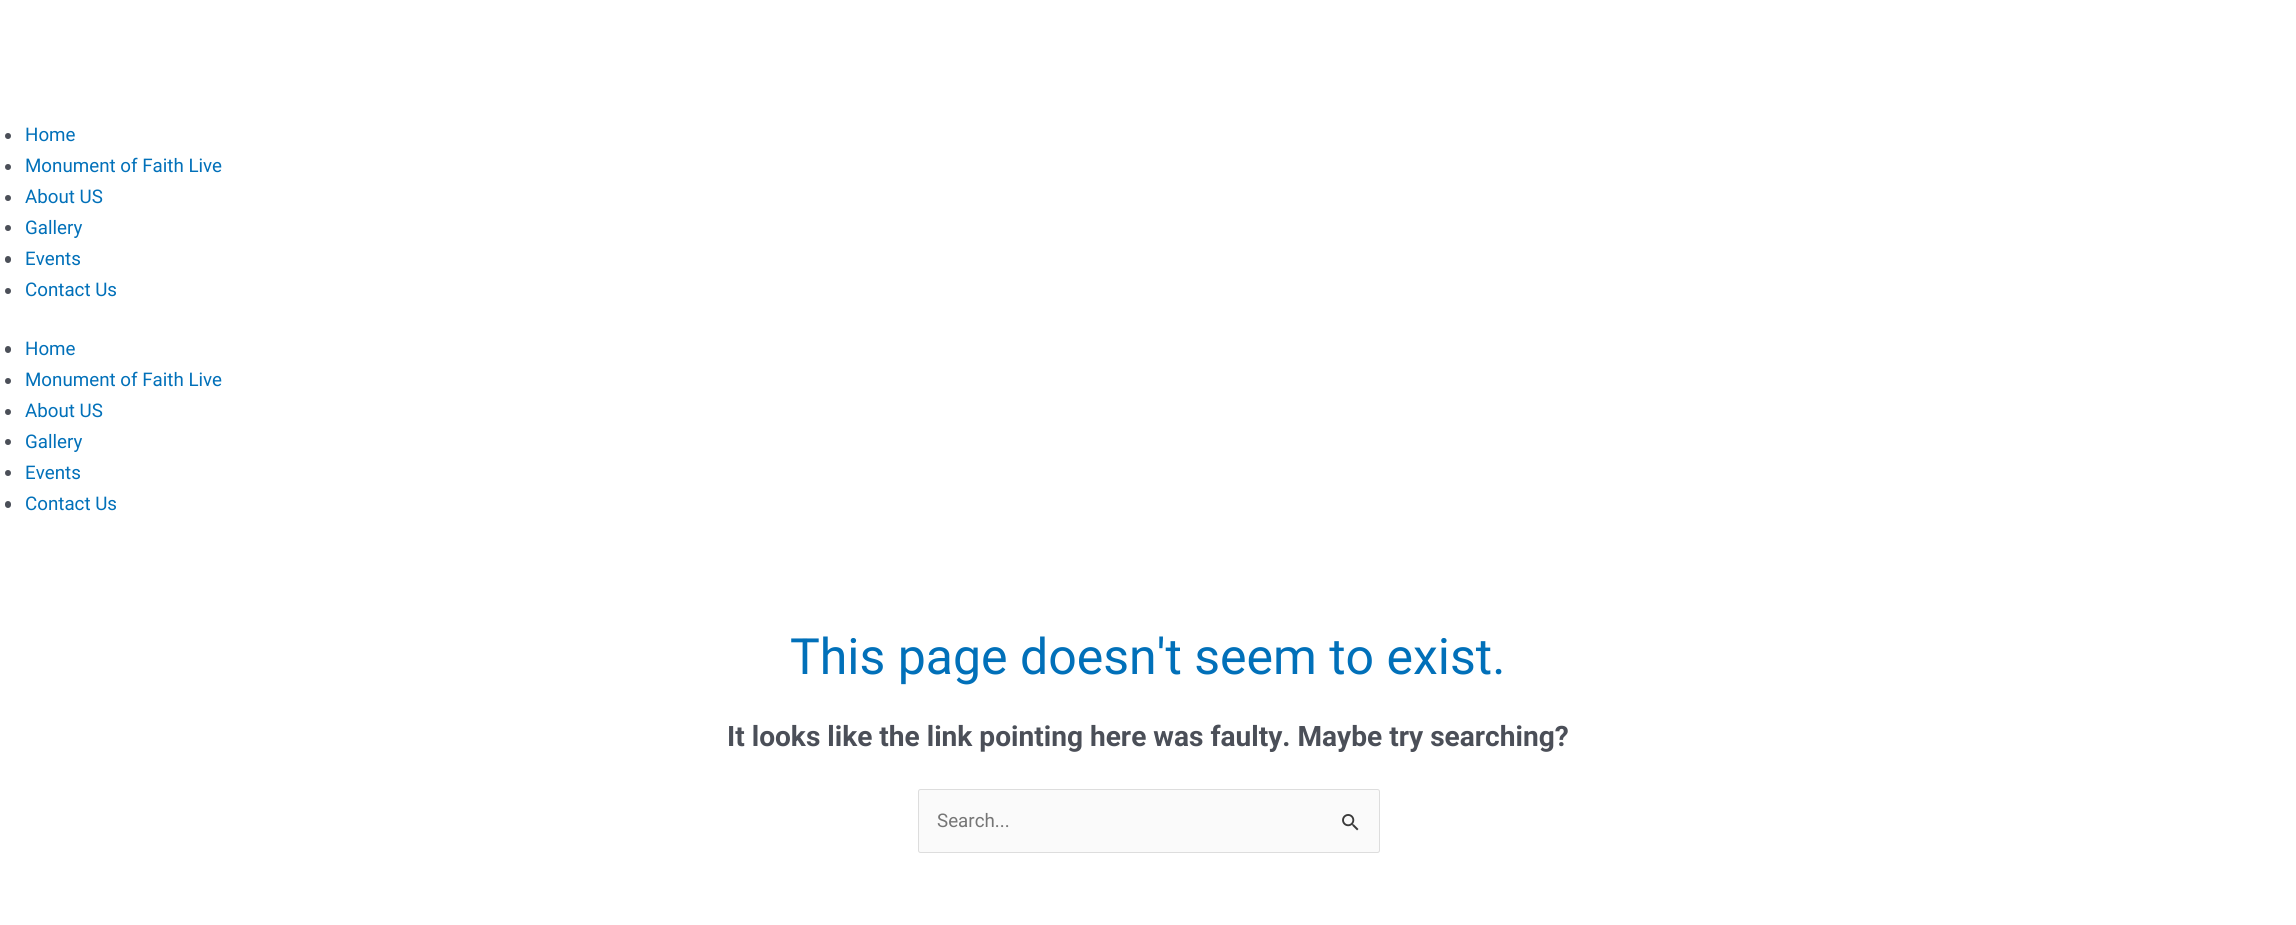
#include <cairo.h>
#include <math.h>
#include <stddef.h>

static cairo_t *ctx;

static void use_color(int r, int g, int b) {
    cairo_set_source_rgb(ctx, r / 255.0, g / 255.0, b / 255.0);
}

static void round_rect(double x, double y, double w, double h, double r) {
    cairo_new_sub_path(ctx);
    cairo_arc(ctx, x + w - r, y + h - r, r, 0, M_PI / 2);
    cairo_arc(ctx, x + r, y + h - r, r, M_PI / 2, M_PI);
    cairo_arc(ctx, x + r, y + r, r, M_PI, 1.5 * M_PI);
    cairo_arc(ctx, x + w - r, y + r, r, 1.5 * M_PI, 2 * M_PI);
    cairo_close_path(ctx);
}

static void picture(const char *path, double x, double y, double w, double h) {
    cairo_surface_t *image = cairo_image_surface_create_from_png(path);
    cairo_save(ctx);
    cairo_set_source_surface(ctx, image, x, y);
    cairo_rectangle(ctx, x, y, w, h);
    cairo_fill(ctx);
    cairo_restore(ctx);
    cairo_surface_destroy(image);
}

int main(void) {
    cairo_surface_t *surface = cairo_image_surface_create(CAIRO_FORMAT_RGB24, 2296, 925);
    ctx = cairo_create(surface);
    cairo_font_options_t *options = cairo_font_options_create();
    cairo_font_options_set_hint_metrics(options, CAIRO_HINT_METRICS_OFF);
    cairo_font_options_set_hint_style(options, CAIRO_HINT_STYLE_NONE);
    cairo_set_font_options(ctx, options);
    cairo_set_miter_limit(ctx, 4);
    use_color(255, 255, 255);
    cairo_paint(ctx);
    use_color(75, 79, 88);
    cairo_arc(ctx, 8, 136, 3, 0, 2 * M_PI);
    cairo_fill(ctx);
    cairo_select_font_face(ctx, "Roboto", CAIRO_FONT_SLANT_NORMAL, CAIRO_FONT_WEIGHT_NORMAL);
    cairo_set_font_size(ctx, 18.75);
    use_color(1, 112, 185);
    cairo_move_to(ctx, 25, 141);
    cairo_show_text(ctx, "Home");
    use_color(75, 79, 88);
    cairo_new_path(ctx);
    cairo_arc(ctx, 8, 167, 3, 0, 2 * M_PI);
    cairo_fill(ctx);
    use_color(1, 112, 185);
    cairo_move_to(ctx, 25, 172);
    cairo_show_text(ctx, "Monument of Faith Live");
    use_color(75, 79, 88);
    cairo_new_path(ctx);
    cairo_arc(ctx, 8, 198, 3, 0, 2 * M_PI);
    cairo_fill(ctx);
    use_color(1, 112, 185);
    cairo_move_to(ctx, 25, 203);
    cairo_show_text(ctx, "About US");
    use_color(75, 79, 88);
    cairo_new_path(ctx);
    cairo_arc(ctx, 8, 228, 3, 0, 2 * M_PI);
    cairo_fill(ctx);
    use_color(1, 112, 185);
    cairo_move_to(ctx, 25, 234);
    cairo_show_text(ctx, "Gallery");
    use_color(75, 79, 88);
    round_rect(5, 256, 6, 7, 3);
    cairo_fill(ctx);
    use_color(1, 112, 185);
    cairo_move_to(ctx, 25, 265);
    cairo_show_text(ctx, "Events");
    use_color(75, 79, 88);
    cairo_new_path(ctx);
    cairo_arc(ctx, 8, 291, 3, 0, 2 * M_PI);
    cairo_fill(ctx);
    use_color(1, 112, 185);
    cairo_move_to(ctx, 25, 296);
    cairo_show_text(ctx, "Contact Us");
    use_color(75, 79, 88);
    round_rect(5, 346, 6, 7, 3);
    cairo_fill(ctx);
    use_color(1, 112, 185);
    cairo_move_to(ctx, 25, 355);
    cairo_show_text(ctx, "Home");
    use_color(75, 79, 88);
    cairo_new_path(ctx);
    cairo_arc(ctx, 8, 381, 3, 0, 2 * M_PI);
    cairo_fill(ctx);
    use_color(1, 112, 185);
    cairo_move_to(ctx, 25, 386);
    cairo_show_text(ctx, "Monument of Faith Live");
    use_color(75, 79, 88);
    cairo_new_path(ctx);
    cairo_arc(ctx, 8, 412, 3, 0, 2 * M_PI);
    cairo_fill(ctx);
    use_color(1, 112, 185);
    cairo_move_to(ctx, 25, 417);
    cairo_show_text(ctx, "About US");
    use_color(75, 79, 88);
    cairo_new_path(ctx);
    cairo_arc(ctx, 8, 442, 3, 0, 2 * M_PI);
    cairo_fill(ctx);
    use_color(1, 112, 185);
    cairo_move_to(ctx, 25, 448);
    cairo_show_text(ctx, "Gallery");
    use_color(75, 79, 88);
    cairo_new_path(ctx);
    cairo_arc(ctx, 8, 473, 3, 0, 2 * M_PI);
    cairo_fill(ctx);
    use_color(1, 112, 185);
    cairo_move_to(ctx, 25, 479);
    cairo_show_text(ctx, "Events");
    use_color(75, 79, 88);
    round_rect(5, 501, 6, 7, 3);
    cairo_fill(ctx);
    use_color(1, 112, 185);
    cairo_move_to(ctx, 25, 510);
    cairo_show_text(ctx, "Contact Us");
    cairo_set_font_size(ctx, 50);
    cairo_move_to(ctx, 790, 674);
    cairo_show_text(ctx, "This page doesn't seem to exist.");
    cairo_select_font_face(ctx, "Roboto", CAIRO_FONT_SLANT_NORMAL, CAIRO_FONT_WEIGHT_BOLD);
    cairo_set_font_size(ctx, 28.1);
    use_color(75, 79, 88);
    cairo_move_to(ctx, 727, 746);
    cairo_show_text(ctx, "It looks like the link pointing here was faulty. Maybe try searching?");
    use_color(250, 250, 250);
    round_rect(918.5, 789.5, 461, 63, 2);
    cairo_fill_preserve(ctx);
    use_color(221, 221, 221);
    cairo_set_line_width(ctx, 1);
    cairo_stroke(ctx);
    cairo_select_font_face(ctx, "Roboto", CAIRO_FONT_SLANT_NORMAL, CAIRO_FONT_WEIGHT_NORMAL);
    cairo_set_font_size(ctx, 18.75);
    use_color(117, 117, 117);
    cairo_move_to(ctx, 937, 827);
    cairo_show_text(ctx, "Search...");
    picture("img1.png", 1342, 814, 17, 17);
    cairo_surface_write_to_png(surface, "result.png");
    cairo_font_options_destroy(options);
    cairo_destroy(ctx);
    cairo_surface_destroy(surface);
    return 0;
}
